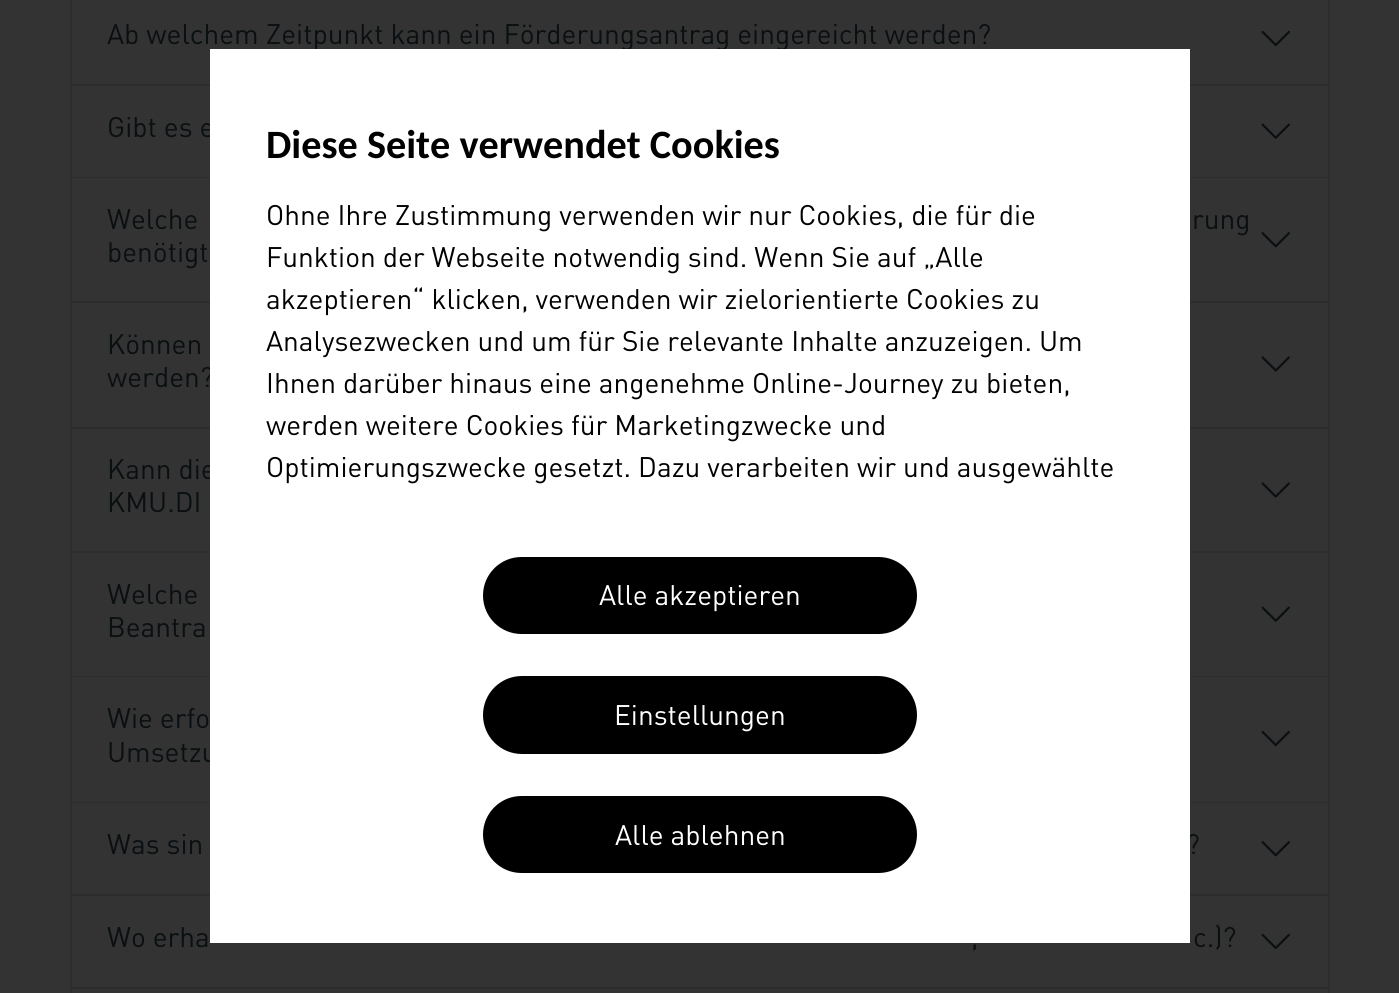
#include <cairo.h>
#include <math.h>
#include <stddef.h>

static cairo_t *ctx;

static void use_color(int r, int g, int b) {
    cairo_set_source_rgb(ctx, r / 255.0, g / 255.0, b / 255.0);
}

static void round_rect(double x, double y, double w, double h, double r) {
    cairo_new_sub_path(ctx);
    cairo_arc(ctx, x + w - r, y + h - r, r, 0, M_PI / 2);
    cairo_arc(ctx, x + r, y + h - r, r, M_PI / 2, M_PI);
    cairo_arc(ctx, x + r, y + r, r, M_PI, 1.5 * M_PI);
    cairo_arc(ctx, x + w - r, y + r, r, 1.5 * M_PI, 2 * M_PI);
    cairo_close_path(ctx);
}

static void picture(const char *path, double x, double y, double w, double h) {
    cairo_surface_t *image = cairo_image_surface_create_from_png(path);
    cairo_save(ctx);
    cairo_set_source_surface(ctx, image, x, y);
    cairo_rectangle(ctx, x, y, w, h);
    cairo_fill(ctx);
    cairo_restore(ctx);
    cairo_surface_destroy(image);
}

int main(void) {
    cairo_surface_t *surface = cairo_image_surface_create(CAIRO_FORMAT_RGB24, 1399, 993);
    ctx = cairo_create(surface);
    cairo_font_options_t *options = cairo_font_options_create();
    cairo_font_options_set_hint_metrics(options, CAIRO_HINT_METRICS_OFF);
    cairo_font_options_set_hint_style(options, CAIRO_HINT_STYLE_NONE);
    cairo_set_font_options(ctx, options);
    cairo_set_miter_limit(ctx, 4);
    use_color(51, 51, 51);
    cairo_paint(ctx);
    use_color(45, 45, 45);
    cairo_new_path(ctx);
    cairo_move_to(ctx, 1330, -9);
    cairo_line_to(ctx, 1330, 84);
    cairo_line_to(ctx, 1328, 84);
    cairo_line_to(ctx, 1328, -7);
    cairo_close_path(ctx);
    cairo_fill(ctx);
    cairo_new_path(ctx);
    cairo_move_to(ctx, 70, 84);
    cairo_line_to(ctx, 70, -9);
    cairo_line_to(ctx, 72, -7);
    cairo_line_to(ctx, 72, 84);
    cairo_close_path(ctx);
    cairo_fill(ctx);
    cairo_select_font_face(ctx, "DIN", CAIRO_FONT_SLANT_NORMAL, CAIRO_FONT_WEIGHT_NORMAL);
    cairo_set_font_size(ctx, 28);
    use_color(10, 15, 18);
    cairo_move_to(ctx, 107, 44);
    cairo_show_text(ctx, "Ab welchem Zeitpunkt kann ein Förderungsantrag eingereicht werden?");
    picture("img1.png", 1261, 30, 29, 17);
    use_color(45, 45, 45);
    cairo_new_path(ctx);
    cairo_move_to(ctx, 70, 84);
    cairo_line_to(ctx, 1330, 84);
    cairo_line_to(ctx, 1328, 86);
    cairo_line_to(ctx, 72, 86);
    cairo_close_path(ctx);
    cairo_fill(ctx);
    cairo_set_source_rgba(ctx, 0, 0, 0, 0.12);
    cairo_new_path(ctx);
    cairo_move_to(ctx, 1330, 84);
    cairo_line_to(ctx, 1330, 177);
    cairo_line_to(ctx, 1328, 177);
    cairo_line_to(ctx, 1328, 86);
    cairo_close_path(ctx);
    cairo_fill(ctx);
    cairo_new_path(ctx);
    cairo_move_to(ctx, 70, 177);
    cairo_line_to(ctx, 70, 84);
    cairo_line_to(ctx, 72, 86);
    cairo_line_to(ctx, 72, 177);
    cairo_close_path(ctx);
    cairo_fill(ctx);
    use_color(10, 15, 18);
    cairo_move_to(ctx, 107, 137);
    cairo_show_text(ctx, "Gibt es e");
    picture("img2.png", 1261, 123, 29, 16);
    use_color(45, 45, 45);
    cairo_new_path(ctx);
    cairo_move_to(ctx, 70, 177);
    cairo_line_to(ctx, 1330, 177);
    cairo_line_to(ctx, 1328, 178);
    cairo_line_to(ctx, 72, 178);
    cairo_close_path(ctx);
    cairo_fill(ctx);
    cairo_set_source_rgba(ctx, 0, 0, 0, 0.12);
    cairo_new_path(ctx);
    cairo_move_to(ctx, 1330, 177);
    cairo_line_to(ctx, 1330, 301);
    cairo_line_to(ctx, 1328, 301);
    cairo_line_to(ctx, 1328, 178);
    cairo_close_path(ctx);
    cairo_fill(ctx);
    cairo_new_path(ctx);
    cairo_move_to(ctx, 70, 301);
    cairo_line_to(ctx, 70, 177);
    cairo_line_to(ctx, 72, 178);
    cairo_line_to(ctx, 72, 301);
    cairo_close_path(ctx);
    cairo_fill(ctx);
    use_color(10, 15, 18);
    cairo_move_to(ctx, 107, 229);
    cairo_show_text(ctx, "Welche");
    cairo_move_to(ctx, 1192, 229);
    cairo_show_text(ctx, "rung");
    picture("img3.png", 1261, 232, 29, 16);
    cairo_move_to(ctx, 107, 262);
    cairo_show_text(ctx, "benötigt");
    use_color(45, 45, 45);
    cairo_new_path(ctx);
    cairo_move_to(ctx, 70, 301);
    cairo_line_to(ctx, 1330, 301);
    cairo_line_to(ctx, 1328, 303);
    cairo_line_to(ctx, 72, 303);
    cairo_close_path(ctx);
    cairo_fill(ctx);
    cairo_set_source_rgba(ctx, 0, 0, 0, 0.12);
    cairo_new_path(ctx);
    cairo_move_to(ctx, 1330, 301);
    cairo_line_to(ctx, 1330, 427);
    cairo_line_to(ctx, 1328, 427);
    cairo_line_to(ctx, 1328, 303);
    cairo_close_path(ctx);
    cairo_fill(ctx);
    cairo_new_path(ctx);
    cairo_move_to(ctx, 70, 427);
    cairo_line_to(ctx, 70, 301);
    cairo_line_to(ctx, 72, 303);
    cairo_line_to(ctx, 72, 427);
    cairo_close_path(ctx);
    cairo_fill(ctx);
    use_color(10, 15, 18);
    cairo_move_to(ctx, 107, 354);
    cairo_show_text(ctx, "Können");
    picture("img4.png", 1261, 356, 29, 16);
    cairo_move_to(ctx, 107, 387);
    cairo_show_text(ctx, "werden?");
    use_color(45, 45, 45);
    cairo_new_path(ctx);
    cairo_move_to(ctx, 70, 427);
    cairo_line_to(ctx, 1330, 427);
    cairo_line_to(ctx, 1328, 429);
    cairo_line_to(ctx, 72, 429);
    cairo_close_path(ctx);
    cairo_fill(ctx);
    cairo_set_source_rgba(ctx, 0, 0, 0, 0.12);
    cairo_new_path(ctx);
    cairo_move_to(ctx, 1330, 427);
    cairo_line_to(ctx, 1330, 551);
    cairo_line_to(ctx, 1328, 551);
    cairo_line_to(ctx, 1328, 429);
    cairo_close_path(ctx);
    cairo_fill(ctx);
    cairo_new_path(ctx);
    cairo_move_to(ctx, 70, 551);
    cairo_line_to(ctx, 70, 427);
    cairo_line_to(ctx, 72, 429);
    cairo_line_to(ctx, 72, 551);
    cairo_close_path(ctx);
    cairo_fill(ctx);
    use_color(10, 15, 18);
    cairo_move_to(ctx, 107, 479);
    cairo_show_text(ctx, "Kann die");
    picture("img4.png", 1261, 482, 29, 16);
    cairo_move_to(ctx, 107, 512);
    cairo_show_text(ctx, "KMU.DI");
    use_color(45, 45, 45);
    cairo_new_path(ctx);
    cairo_move_to(ctx, 70, 551);
    cairo_line_to(ctx, 1330, 551);
    cairo_line_to(ctx, 1328, 553);
    cairo_line_to(ctx, 72, 553);
    cairo_close_path(ctx);
    cairo_fill(ctx);
    cairo_set_source_rgba(ctx, 0, 0, 0, 0.12);
    cairo_new_path(ctx);
    cairo_move_to(ctx, 1330, 551);
    cairo_line_to(ctx, 1330, 676);
    cairo_line_to(ctx, 1328, 676);
    cairo_line_to(ctx, 1328, 553);
    cairo_close_path(ctx);
    cairo_fill(ctx);
    cairo_new_path(ctx);
    cairo_move_to(ctx, 70, 676);
    cairo_line_to(ctx, 70, 551);
    cairo_line_to(ctx, 72, 553);
    cairo_line_to(ctx, 72, 676);
    cairo_close_path(ctx);
    cairo_fill(ctx);
    use_color(10, 15, 18);
    cairo_move_to(ctx, 107, 604);
    cairo_show_text(ctx, "Welche");
    picture("img2.png", 1261, 606, 29, 16);
    cairo_move_to(ctx, 107, 637);
    cairo_show_text(ctx, "Beantra");
    use_color(45, 45, 45);
    cairo_new_path(ctx);
    cairo_move_to(ctx, 70, 676);
    cairo_line_to(ctx, 1330, 676);
    cairo_line_to(ctx, 1328, 677);
    cairo_line_to(ctx, 72, 677);
    cairo_close_path(ctx);
    cairo_fill(ctx);
    cairo_set_source_rgba(ctx, 0, 0, 0, 0.12);
    cairo_new_path(ctx);
    cairo_move_to(ctx, 1330, 676);
    cairo_line_to(ctx, 1330, 802);
    cairo_line_to(ctx, 1328, 802);
    cairo_line_to(ctx, 1328, 677);
    cairo_close_path(ctx);
    cairo_fill(ctx);
    cairo_new_path(ctx);
    cairo_move_to(ctx, 70, 802);
    cairo_line_to(ctx, 70, 676);
    cairo_line_to(ctx, 72, 677);
    cairo_line_to(ctx, 72, 802);
    cairo_close_path(ctx);
    cairo_fill(ctx);
    use_color(10, 15, 18);
    cairo_move_to(ctx, 107, 728);
    cairo_show_text(ctx, "Wie erfo");
    picture("img1.png", 1261, 730, 29, 17);
    cairo_move_to(ctx, 107, 762);
    cairo_show_text(ctx, "Umsetzu");
    use_color(45, 45, 45);
    cairo_new_path(ctx);
    cairo_move_to(ctx, 70, 802);
    cairo_line_to(ctx, 1330, 802);
    cairo_line_to(ctx, 1328, 803);
    cairo_line_to(ctx, 72, 803);
    cairo_close_path(ctx);
    cairo_fill(ctx);
    cairo_set_source_rgba(ctx, 0, 0, 0, 0.12);
    cairo_new_path(ctx);
    cairo_move_to(ctx, 1330, 802);
    cairo_line_to(ctx, 1330, 894);
    cairo_line_to(ctx, 1328, 894);
    cairo_line_to(ctx, 1328, 803);
    cairo_close_path(ctx);
    cairo_fill(ctx);
    cairo_new_path(ctx);
    cairo_move_to(ctx, 70, 894);
    cairo_line_to(ctx, 70, 802);
    cairo_line_to(ctx, 72, 803);
    cairo_line_to(ctx, 72, 894);
    cairo_close_path(ctx);
    cairo_fill(ctx);
    use_color(10, 15, 18);
    cairo_move_to(ctx, 107, 854);
    cairo_show_text(ctx, "Was sin");
    cairo_move_to(ctx, 1186, 854);
    cairo_show_text(ctx, "?");
    picture("img3.png", 1261, 841, 29, 16);
    use_color(45, 45, 45);
    cairo_new_path(ctx);
    cairo_move_to(ctx, 70, 894);
    cairo_line_to(ctx, 1330, 894);
    cairo_line_to(ctx, 1328, 896);
    cairo_line_to(ctx, 72, 896);
    cairo_close_path(ctx);
    cairo_fill(ctx);
    cairo_set_source_rgba(ctx, 0, 0, 0, 0.12);
    cairo_new_path(ctx);
    cairo_move_to(ctx, 1330, 894);
    cairo_line_to(ctx, 1330, 987);
    cairo_line_to(ctx, 1328, 987);
    cairo_line_to(ctx, 1328, 896);
    cairo_close_path(ctx);
    cairo_fill(ctx);
    cairo_new_path(ctx);
    cairo_move_to(ctx, 70, 987);
    cairo_line_to(ctx, 70, 894);
    cairo_line_to(ctx, 72, 896);
    cairo_line_to(ctx, 72, 987);
    cairo_close_path(ctx);
    cairo_fill(ctx);
    use_color(10, 15, 18);
    cairo_move_to(ctx, 107, 947);
    cairo_show_text(ctx, "Wo erha");
    cairo_move_to(ctx, 971, 947);
    cairo_show_text(ctx, ",");
    cairo_move_to(ctx, 1193, 947);
    cairo_show_text(ctx, "c.)?");
    picture("img1.png", 1261, 933, 29, 17);
    use_color(45, 45, 45);
    cairo_new_path(ctx);
    cairo_move_to(ctx, 70, 987);
    cairo_line_to(ctx, 1330, 987);
    cairo_line_to(ctx, 1328, 989);
    cairo_line_to(ctx, 72, 989);
    cairo_close_path(ctx);
    cairo_fill(ctx);
    cairo_set_source_rgba(ctx, 0, 0, 0, 0.12);
    cairo_new_path(ctx);
    cairo_move_to(ctx, 1330, 987);
    cairo_line_to(ctx, 1330, 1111);
    cairo_line_to(ctx, 1328, 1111);
    cairo_line_to(ctx, 1328, 989);
    cairo_close_path(ctx);
    cairo_fill(ctx);
    cairo_new_path(ctx);
    cairo_move_to(ctx, 70, 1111);
    cairo_line_to(ctx, 70, 987);
    cairo_line_to(ctx, 72, 989);
    cairo_line_to(ctx, 72, 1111);
    cairo_close_path(ctx);
    cairo_fill(ctx);
    use_color(255, 255, 255);
    cairo_rectangle(ctx, 210, 49, 980, 894);
    cairo_fill(ctx);
    cairo_select_font_face(ctx, "Carlito", CAIRO_FONT_SLANT_NORMAL, CAIRO_FONT_WEIGHT_BOLD);
    cairo_set_font_size(ctx, 40.25);
    use_color(0, 0, 0);
    cairo_move_to(ctx, 266, 158);
    cairo_show_text(ctx, "Diese Seite verwendet Cookies");
    cairo_select_font_face(ctx, "DIN", CAIRO_FONT_SLANT_NORMAL, CAIRO_FONT_WEIGHT_NORMAL);
    cairo_set_font_size(ctx, 28);
    cairo_move_to(ctx, 266, 225);
    cairo_show_text(ctx, "Ohne Ihre Zustimmung verwenden wir nur Cookies, die für die");
    cairo_move_to(ctx, 266, 267);
    cairo_show_text(ctx, "Funktion der Webseite notwendig sind. Wenn Sie auf „Alle");
    cairo_move_to(ctx, 266, 309);
    cairo_show_text(ctx, "akzeptieren“ klicken, verwenden wir zielorientierte Cookies zu");
    cairo_move_to(ctx, 266, 351);
    cairo_show_text(ctx, "Analysezwecken und um für Sie relevante Inhalte anzuzeigen. Um");
    cairo_move_to(ctx, 266, 393);
    cairo_show_text(ctx, "Ihnen darüber hinaus eine angenehme Online-Journey zu bieten,");
    cairo_move_to(ctx, 266, 435);
    cairo_show_text(ctx, "werden weitere Cookies für Marketingzwecke und");
    cairo_move_to(ctx, 266, 477);
    cairo_show_text(ctx, "Optimierungszwecke gesetzt. Dazu verarbeiten wir und ausgewählte");
    round_rect(484, 558, 432, 75, 37.5);
    cairo_fill_preserve(ctx);
    cairo_stroke(ctx);
    use_color(255, 255, 255);
    cairo_move_to(ctx, 599, 605);
    cairo_show_text(ctx, "Alle akzeptieren");
    use_color(0, 0, 0);
    round_rect(484, 677, 432, 76, 38);
    cairo_fill_preserve(ctx);
    cairo_stroke(ctx);
    use_color(255, 255, 255);
    cairo_move_to(ctx, 614, 725);
    cairo_show_text(ctx, "Einstellungen");
    use_color(0, 0, 0);
    round_rect(484, 797, 432, 75, 37.5);
    cairo_fill_preserve(ctx);
    cairo_stroke(ctx);
    use_color(255, 255, 255);
    cairo_move_to(ctx, 615, 845);
    cairo_show_text(ctx, "Alle ablehnen");
    cairo_surface_write_to_png(surface, "result.png");
    cairo_font_options_destroy(options);
    cairo_destroy(ctx);
    cairo_surface_destroy(surface);
    return 0;
}
